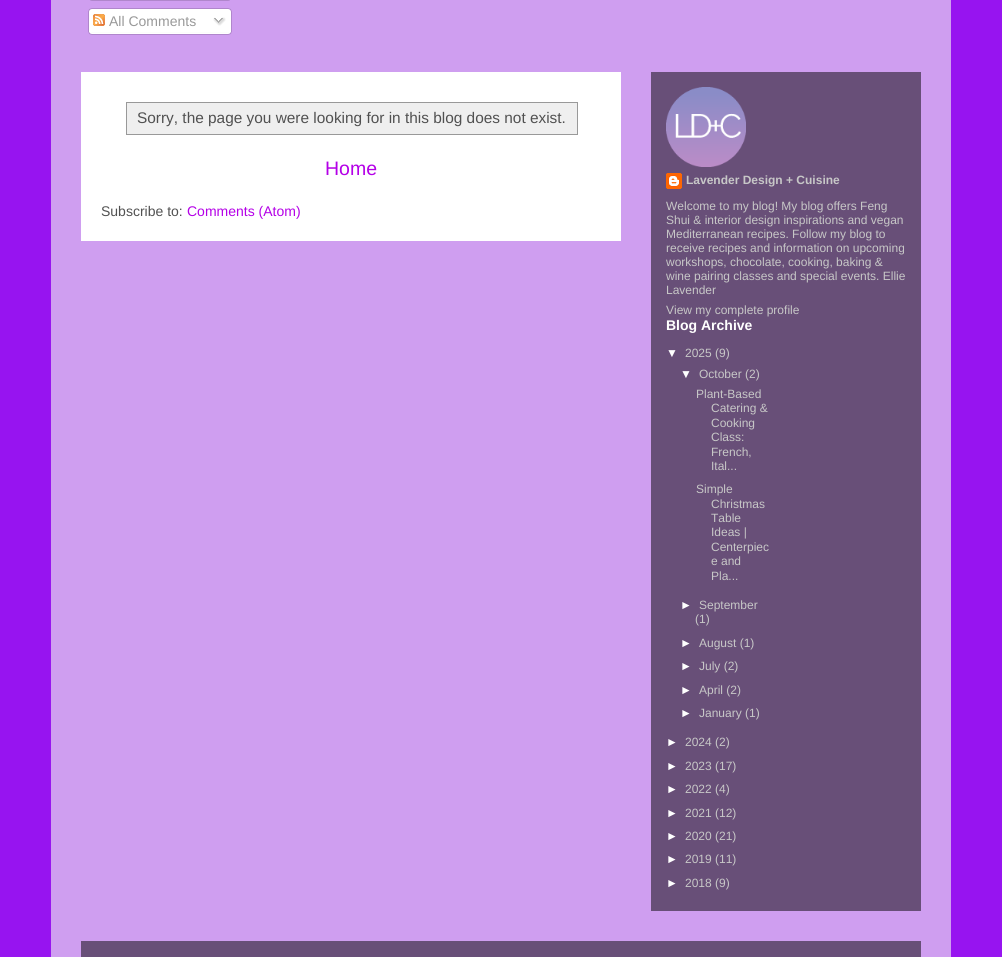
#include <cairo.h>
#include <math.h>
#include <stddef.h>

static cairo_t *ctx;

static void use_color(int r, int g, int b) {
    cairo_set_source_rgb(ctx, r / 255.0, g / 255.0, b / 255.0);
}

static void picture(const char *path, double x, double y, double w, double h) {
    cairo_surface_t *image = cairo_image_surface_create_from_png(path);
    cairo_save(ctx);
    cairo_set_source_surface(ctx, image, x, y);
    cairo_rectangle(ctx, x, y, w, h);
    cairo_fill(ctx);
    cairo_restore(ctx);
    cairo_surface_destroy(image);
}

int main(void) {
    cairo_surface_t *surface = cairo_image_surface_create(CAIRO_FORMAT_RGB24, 1002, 957);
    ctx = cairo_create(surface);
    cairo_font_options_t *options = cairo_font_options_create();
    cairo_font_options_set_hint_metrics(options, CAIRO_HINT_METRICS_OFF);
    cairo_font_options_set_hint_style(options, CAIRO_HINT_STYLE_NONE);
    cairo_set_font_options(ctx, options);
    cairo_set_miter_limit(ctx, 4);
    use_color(151, 20, 240);
    cairo_paint(ctx);
    use_color(207, 158, 240);
    cairo_rectangle(ctx, 51, 0, 900, 957);
    cairo_fill(ctx);
    picture("img1.png", 90, 0, 140, 1);
    picture("img2.png", 88, 8, 144, 24);
    picture("img3.png", 93, 14, 12, 12);
    cairo_select_font_face(ctx, "Liberation Sans", CAIRO_FONT_SLANT_NORMAL, CAIRO_FONT_WEIGHT_NORMAL);
    cairo_set_font_size(ctx, 14);
    use_color(153, 153, 153);
    cairo_move_to(ctx, 109, 26);
    cairo_show_text(ctx, "All Comments");
    picture("img4.png", 213, 17, 13, 9);
    picture("img5.png", 88, 32, 144, 3);
    use_color(104, 79, 120);
    cairo_rectangle(ctx, 651, 72, 270, 839);
    cairo_fill(ctx);
    use_color(255, 255, 255);
    cairo_rectangle(ctx, 81, 72, 540, 169);
    cairo_fill(ctx);
    cairo_rectangle(ctx, 126.5, 102.5, 451, 32);
    use_color(153, 153, 153);
    cairo_set_line_width(ctx, 1);
    cairo_stroke(ctx);
    use_color(239, 239, 239);
    cairo_rectangle(ctx, 127, 103, 450, 31);
    cairo_fill(ctx);
    cairo_set_font_size(ctx, 15.4);
    use_color(81, 81, 81);
    cairo_move_to(ctx, 137, 123);
    cairo_show_text(ctx, "Sorry, the page you were looking for in this blog does not exist.");
    cairo_set_font_size(ctx, 19.5);
    use_color(180, 0, 231);
    cairo_move_to(ctx, 325, 175);
    cairo_show_text(ctx, "Home");
    cairo_set_font_size(ctx, 14);
    use_color(81, 81, 81);
    cairo_move_to(ctx, 101, 216);
    cairo_show_text(ctx, "Subscribe to:");
    use_color(180, 0, 231);
    cairo_move_to(ctx, 187, 216);
    cairo_show_text(ctx, "Comments (Atom)");
    picture("img6.png", 666, 87, 80, 80);
    picture("img7.png", 666, 173, 16, 16);
    cairo_select_font_face(ctx, "Liberation Sans", CAIRO_FONT_SLANT_NORMAL, CAIRO_FONT_WEIGHT_BOLD);
    cairo_set_font_size(ctx, 12);
    use_color(199, 199, 199);
    cairo_move_to(ctx, 686, 184);
    cairo_show_text(ctx, "Lavender Design + Cuisine");
    cairo_select_font_face(ctx, "Liberation Sans", CAIRO_FONT_SLANT_NORMAL, CAIRO_FONT_WEIGHT_NORMAL);
    cairo_move_to(ctx, 666, 210);
    cairo_show_text(ctx, "Welcome to my blog! My blog offers Feng");
    cairo_move_to(ctx, 666, 224);
    cairo_show_text(ctx, "Shui & interior design inspirations and vegan");
    cairo_move_to(ctx, 666, 238);
    cairo_show_text(ctx, "Mediterranean recipes. Follow my blog to");
    cairo_move_to(ctx, 666, 252);
    cairo_show_text(ctx, "receive recipes and information on upcoming");
    cairo_move_to(ctx, 666, 266);
    cairo_show_text(ctx, "workshops, chocolate, cooking, baking &");
    cairo_move_to(ctx, 666, 280);
    cairo_show_text(ctx, "wine pairing classes and special events. Ellie");
    cairo_move_to(ctx, 666, 294);
    cairo_show_text(ctx, "Lavender");
    cairo_move_to(ctx, 666, 314);
    cairo_show_text(ctx, "View my complete profile");
    cairo_select_font_face(ctx, "Liberation Sans", CAIRO_FONT_SLANT_NORMAL, CAIRO_FONT_WEIGHT_BOLD);
    cairo_set_font_size(ctx, 14);
    use_color(255, 255, 255);
    cairo_move_to(ctx, 666, 330);
    cairo_show_text(ctx, "Blog Archive");
    cairo_select_font_face(ctx, "Liberation Sans", CAIRO_FONT_SLANT_NORMAL, CAIRO_FONT_WEIGHT_NORMAL);
    cairo_set_font_size(ctx, 12);
    cairo_move_to(ctx, 666, 357);
    cairo_show_text(ctx, "▼");
    use_color(199, 199, 199);
    cairo_move_to(ctx, 685, 357);
    cairo_show_text(ctx, "2025 (9)");
    use_color(255, 255, 255);
    cairo_move_to(ctx, 680, 378);
    cairo_show_text(ctx, "▼");
    use_color(199, 199, 199);
    cairo_move_to(ctx, 699, 378);
    cairo_show_text(ctx, "October (2)");
    cairo_move_to(ctx, 696, 398);
    cairo_show_text(ctx, "Plant-Based");
    cairo_move_to(ctx, 711, 412);
    cairo_show_text(ctx, "Catering &");
    cairo_move_to(ctx, 711, 427);
    cairo_show_text(ctx, "Cooking");
    cairo_move_to(ctx, 711, 441);
    cairo_show_text(ctx, "Class:");
    cairo_move_to(ctx, 711, 456);
    cairo_show_text(ctx, "French,");
    cairo_move_to(ctx, 711, 470);
    cairo_show_text(ctx, "Ital...");
    cairo_move_to(ctx, 696, 493);
    cairo_show_text(ctx, "Simple");
    cairo_move_to(ctx, 711, 508);
    cairo_show_text(ctx, "Christmas");
    cairo_move_to(ctx, 711, 522);
    cairo_show_text(ctx, "Table");
    cairo_move_to(ctx, 711, 536);
    cairo_show_text(ctx, "Ideas |");
    cairo_move_to(ctx, 711, 551);
    cairo_show_text(ctx, "Centerpiec");
    cairo_move_to(ctx, 711, 565);
    cairo_show_text(ctx, "e and");
    cairo_move_to(ctx, 711, 580);
    cairo_show_text(ctx, "Pla...");
    use_color(255, 255, 255);
    cairo_move_to(ctx, 680, 609);
    cairo_show_text(ctx, "►");
    use_color(199, 199, 199);
    cairo_move_to(ctx, 699, 609);
    cairo_show_text(ctx, "September");
    cairo_move_to(ctx, 695, 623);
    cairo_show_text(ctx, "(1)");
    use_color(255, 255, 255);
    cairo_move_to(ctx, 680, 647);
    cairo_show_text(ctx, "►");
    use_color(199, 199, 199);
    cairo_move_to(ctx, 699, 647);
    cairo_show_text(ctx, "August (1)");
    use_color(255, 255, 255);
    cairo_move_to(ctx, 680, 670);
    cairo_show_text(ctx, "►");
    use_color(199, 199, 199);
    cairo_move_to(ctx, 699, 670);
    cairo_show_text(ctx, "July (2)");
    use_color(255, 255, 255);
    cairo_move_to(ctx, 680, 694);
    cairo_show_text(ctx, "►");
    use_color(199, 199, 199);
    cairo_move_to(ctx, 699, 694);
    cairo_show_text(ctx, "April (2)");
    use_color(255, 255, 255);
    cairo_move_to(ctx, 680, 717);
    cairo_show_text(ctx, "►");
    use_color(199, 199, 199);
    cairo_move_to(ctx, 699, 717);
    cairo_show_text(ctx, "January (1)");
    use_color(255, 255, 255);
    cairo_move_to(ctx, 666, 746);
    cairo_show_text(ctx, "►");
    use_color(199, 199, 199);
    cairo_move_to(ctx, 685, 746);
    cairo_show_text(ctx, "2024 (2)");
    use_color(255, 255, 255);
    cairo_move_to(ctx, 666, 770);
    cairo_show_text(ctx, "►");
    use_color(199, 199, 199);
    cairo_move_to(ctx, 685, 770);
    cairo_show_text(ctx, "2023 (17)");
    use_color(255, 255, 255);
    cairo_move_to(ctx, 666, 793);
    cairo_show_text(ctx, "►");
    use_color(199, 199, 199);
    cairo_move_to(ctx, 685, 793);
    cairo_show_text(ctx, "2022 (4)");
    use_color(255, 255, 255);
    cairo_move_to(ctx, 666, 817);
    cairo_show_text(ctx, "►");
    use_color(199, 199, 199);
    cairo_move_to(ctx, 685, 817);
    cairo_show_text(ctx, "2021 (12)");
    use_color(255, 255, 255);
    cairo_move_to(ctx, 666, 840);
    cairo_show_text(ctx, "►");
    use_color(199, 199, 199);
    cairo_move_to(ctx, 685, 840);
    cairo_show_text(ctx, "2020 (21)");
    use_color(255, 255, 255);
    cairo_move_to(ctx, 666, 863);
    cairo_show_text(ctx, "►");
    use_color(199, 199, 199);
    cairo_move_to(ctx, 685, 863);
    cairo_show_text(ctx, "2019 (11)");
    use_color(255, 255, 255);
    cairo_move_to(ctx, 666, 887);
    cairo_show_text(ctx, "►");
    use_color(199, 199, 199);
    cairo_move_to(ctx, 685, 887);
    cairo_show_text(ctx, "2018 (9)");
    use_color(104, 79, 120);
    cairo_rectangle(ctx, 81, 941, 840, 16);
    cairo_fill(ctx);
    cairo_surface_write_to_png(surface, "result.png");
    cairo_font_options_destroy(options);
    cairo_destroy(ctx);
    cairo_surface_destroy(surface);
    return 0;
}
